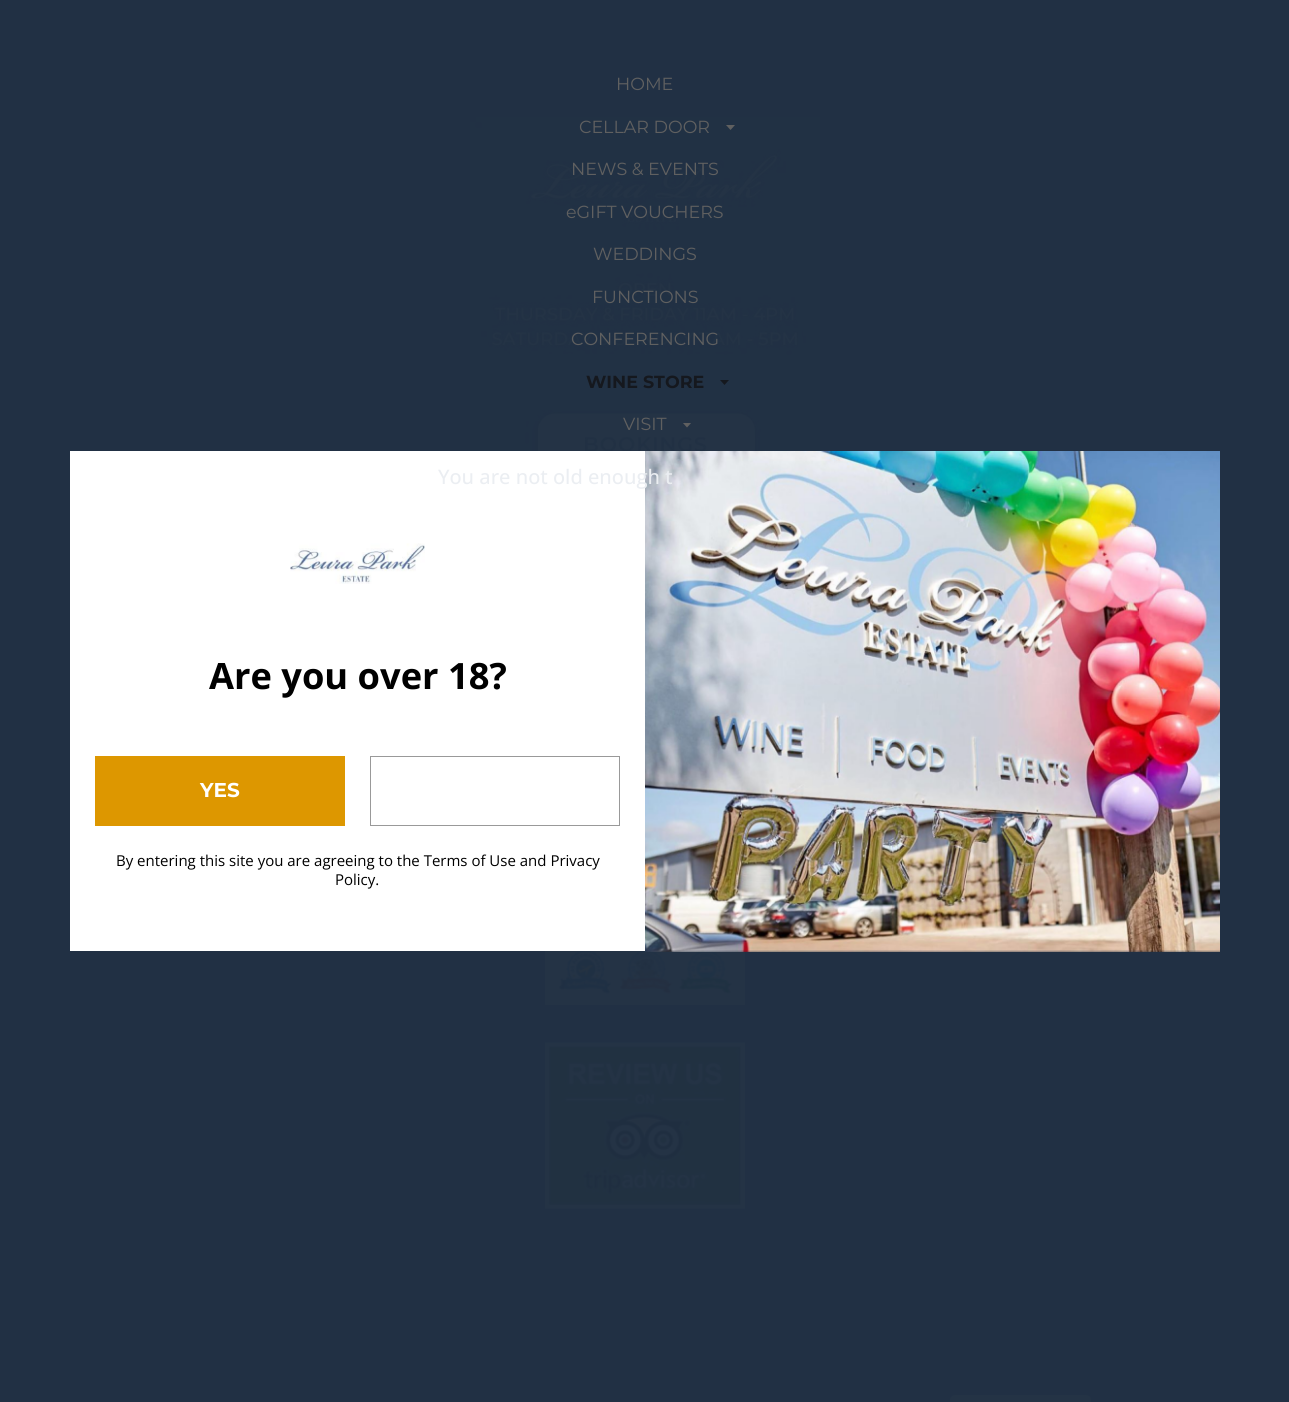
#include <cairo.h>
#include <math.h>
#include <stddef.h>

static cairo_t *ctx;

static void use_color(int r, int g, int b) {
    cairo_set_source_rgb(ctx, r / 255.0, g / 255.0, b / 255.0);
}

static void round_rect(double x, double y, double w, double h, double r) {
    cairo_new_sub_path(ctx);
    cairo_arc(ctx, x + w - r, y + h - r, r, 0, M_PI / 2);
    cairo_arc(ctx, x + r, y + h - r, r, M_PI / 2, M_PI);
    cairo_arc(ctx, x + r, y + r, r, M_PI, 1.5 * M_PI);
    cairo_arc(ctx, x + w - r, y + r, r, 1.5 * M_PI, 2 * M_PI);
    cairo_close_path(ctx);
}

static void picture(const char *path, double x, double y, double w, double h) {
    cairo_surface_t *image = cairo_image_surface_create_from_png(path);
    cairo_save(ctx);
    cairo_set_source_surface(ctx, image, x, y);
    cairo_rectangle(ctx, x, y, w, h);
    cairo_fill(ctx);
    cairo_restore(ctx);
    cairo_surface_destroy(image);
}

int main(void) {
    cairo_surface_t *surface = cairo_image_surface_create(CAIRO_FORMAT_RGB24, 1289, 1402);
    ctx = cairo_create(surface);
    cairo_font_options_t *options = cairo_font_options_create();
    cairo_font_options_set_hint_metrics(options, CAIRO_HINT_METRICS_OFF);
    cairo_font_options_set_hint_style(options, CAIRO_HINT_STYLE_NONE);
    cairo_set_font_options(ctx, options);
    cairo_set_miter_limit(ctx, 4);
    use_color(33, 48, 68);
    cairo_paint(ctx);
    cairo_select_font_face(ctx, "Montserrat", CAIRO_FONT_SLANT_NORMAL, CAIRO_FONT_WEIGHT_NORMAL);
    cairo_set_font_size(ctx, 17.5);
    use_color(96, 96, 96);
    cairo_move_to(ctx, 616, 90);
    cairo_show_text(ctx, "HOME");
    picture("img1.png", 470, 117, 350, 334);
    cairo_move_to(ctx, 579, 133);
    cairo_show_text(ctx, "CELLAR DOOR");
    cairo_new_path(ctx);
    cairo_move_to(ctx, 735, 125);
    cairo_line_to(ctx, 730.5, 130);
    cairo_line_to(ctx, 726, 125);
    cairo_close_path(ctx);
    cairo_fill(ctx);
    cairo_move_to(ctx, 571, 175);
    cairo_show_text(ctx, "NEWS & EVENTS");
    cairo_move_to(ctx, 566, 218);
    cairo_show_text(ctx, "eGIFT VOUCHERS");
    cairo_move_to(ctx, 593, 260);
    cairo_show_text(ctx, "WEDDINGS");
    cairo_move_to(ctx, 592, 303);
    cairo_show_text(ctx, "FUNCTIONS");
    cairo_move_to(ctx, 571, 345);
    cairo_show_text(ctx, "CONFERENCING");
    cairo_select_font_face(ctx, "Montserrat", CAIRO_FONT_SLANT_NORMAL, CAIRO_FONT_WEIGHT_BOLD);
    use_color(21, 24, 30);
    cairo_move_to(ctx, 586, 388);
    cairo_show_text(ctx, "WINE STORE");
    cairo_new_path(ctx);
    cairo_move_to(ctx, 729, 380);
    cairo_line_to(ctx, 724.5, 385);
    cairo_line_to(ctx, 720, 380);
    cairo_close_path(ctx);
    cairo_fill(ctx);
    cairo_select_font_face(ctx, "Montserrat", CAIRO_FONT_SLANT_NORMAL, CAIRO_FONT_WEIGHT_NORMAL);
    use_color(96, 96, 96);
    cairo_move_to(ctx, 623, 430);
    cairo_show_text(ctx, "VISIT");
    cairo_save(ctx);
    cairo_rectangle(ctx, 683, 423, 8, 5);
    cairo_clip(ctx);
    cairo_new_path(ctx);
    cairo_move_to(ctx, 691.5, 422.5);
    cairo_line_to(ctx, 687, 427.5);
    cairo_line_to(ctx, 682.5, 422.5);
    cairo_close_path(ctx);
    cairo_fill(ctx);
    cairo_restore(ctx);
    picture("img2.png", 545, 950, 200, 55);
    picture("img3.png", 545, 1042, 200, 167);
    picture("img4.png", 645, 451, 575, 501);
    use_color(255, 255, 255);
    cairo_rectangle(ctx, 70, 451, 575, 500);
    cairo_fill(ctx);
    cairo_select_font_face(ctx, "Open Sans Medium", CAIRO_FONT_SLANT_NORMAL, CAIRO_FONT_WEIGHT_NORMAL);
    cairo_set_font_size(ctx, 20);
    use_color(235, 238, 242);
    cairo_move_to(ctx, 438, 484);
    cairo_show_text(ctx, "You are not old enough t");
    picture("img5.png", 290, 543, 135, 41);
    cairo_select_font_face(ctx, "Open Sans", CAIRO_FONT_SLANT_NORMAL, CAIRO_FONT_WEIGHT_BOLD);
    cairo_set_font_size(ctx, 36.25);
    use_color(0, 0, 0);
    cairo_move_to(ctx, 209, 689);
    cairo_show_text(ctx, "Are you over 18?");
    use_color(221, 151, 0);
    cairo_rectangle(ctx, 95, 756, 250, 70);
    cairo_fill(ctx);
    cairo_select_font_face(ctx, "Montserrat", CAIRO_FONT_SLANT_NORMAL, CAIRO_FONT_WEIGHT_BOLD);
    cairo_set_font_size(ctx, 20);
    use_color(255, 255, 255);
    cairo_move_to(ctx, 200, 797);
    cairo_show_text(ctx, "YES");
    cairo_rectangle(ctx, 370.5, 756.5, 249, 69);
    use_color(153, 153, 153);
    cairo_set_line_width(ctx, 1);
    cairo_stroke(ctx);
    cairo_select_font_face(ctx, "Open Sans", CAIRO_FONT_SLANT_NORMAL, CAIRO_FONT_WEIGHT_NORMAL);
    cairo_set_font_size(ctx, 15);
    use_color(0, 0, 0);
    cairo_move_to(ctx, 116, 866);
    cairo_show_text(ctx, "By entering this site you are agreeing to the Terms of Use and Privacy");
    cairo_move_to(ctx, 335, 885);
    cairo_show_text(ctx, "Policy.");
    use_color(36, 51, 69);
    round_rect(950, 1395, 141, 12, 5);
    cairo_fill(ctx);
    cairo_surface_write_to_png(surface, "result.png");
    cairo_font_options_destroy(options);
    cairo_destroy(ctx);
    cairo_surface_destroy(surface);
    return 0;
}
